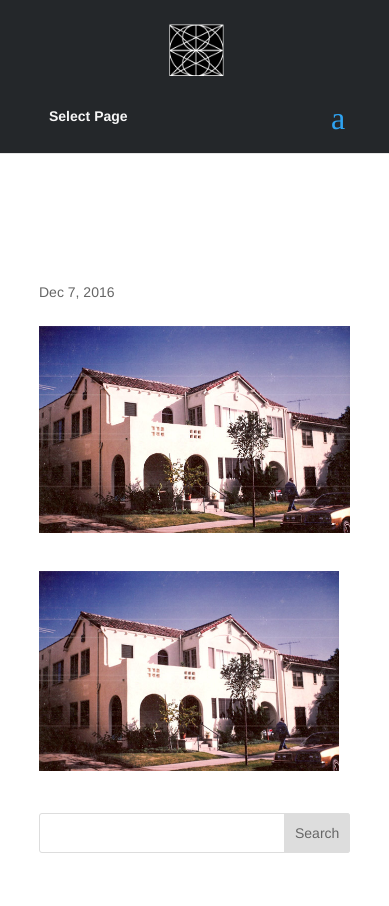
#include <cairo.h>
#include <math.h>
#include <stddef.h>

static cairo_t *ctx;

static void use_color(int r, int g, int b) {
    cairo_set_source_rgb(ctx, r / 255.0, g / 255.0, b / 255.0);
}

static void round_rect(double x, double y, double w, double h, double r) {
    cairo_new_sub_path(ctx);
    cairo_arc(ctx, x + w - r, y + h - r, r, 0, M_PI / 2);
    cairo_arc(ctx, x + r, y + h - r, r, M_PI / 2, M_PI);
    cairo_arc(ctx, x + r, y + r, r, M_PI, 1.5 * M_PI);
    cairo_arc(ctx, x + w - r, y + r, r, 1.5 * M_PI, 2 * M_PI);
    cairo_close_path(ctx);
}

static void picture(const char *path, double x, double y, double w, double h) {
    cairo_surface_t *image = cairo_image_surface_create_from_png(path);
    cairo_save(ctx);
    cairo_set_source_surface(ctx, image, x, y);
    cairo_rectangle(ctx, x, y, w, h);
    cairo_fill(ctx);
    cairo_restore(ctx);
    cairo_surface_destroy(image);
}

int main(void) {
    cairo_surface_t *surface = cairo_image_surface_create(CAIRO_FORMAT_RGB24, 389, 906);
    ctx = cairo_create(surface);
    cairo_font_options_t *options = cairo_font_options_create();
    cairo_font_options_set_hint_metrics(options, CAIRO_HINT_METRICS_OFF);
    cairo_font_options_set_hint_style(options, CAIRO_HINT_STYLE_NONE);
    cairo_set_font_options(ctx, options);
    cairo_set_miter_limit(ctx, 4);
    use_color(36, 39, 42);
    cairo_paint(ctx);
    use_color(230, 230, 230);
    cairo_rectangle(ctx, 0, 153, 389, 1);
    cairo_fill(ctx);
    picture("img1.png", 169, 24, 55, 52);
    cairo_select_font_face(ctx, "Liberation Sans", CAIRO_FONT_SLANT_NORMAL, CAIRO_FONT_WEIGHT_BOLD);
    cairo_set_font_size(ctx, 14);
    use_color(247, 247, 247);
    cairo_move_to(ctx, 49, 121);
    cairo_show_text(ctx, "Select Page");
    cairo_select_font_face(ctx, "Liberation Serif", CAIRO_FONT_SLANT_NORMAL, CAIRO_FONT_WEIGHT_NORMAL);
    cairo_set_font_size(ctx, 32);
    use_color(46, 163, 242);
    cairo_move_to(ctx, 331, 129);
    cairo_show_text(ctx, "a");
    use_color(255, 255, 255);
    cairo_rectangle(ctx, 0, 154, 389, 752);
    cairo_fill(ctx);
    cairo_select_font_face(ctx, "Liberation Sans", CAIRO_FONT_SLANT_NORMAL, CAIRO_FONT_WEIGHT_NORMAL);
    cairo_set_font_size(ctx, 14);
    use_color(102, 102, 102);
    cairo_move_to(ctx, 39, 297);
    cairo_show_text(ctx, "Dec 7, 2016");
    picture("img2.png", 39, 326, 311, 207);
    picture("img3.png", 39, 571, 300, 200);
    round_rect(39.5, 813.5, 310, 39, 2.5);
    use_color(221, 221, 221);
    cairo_set_line_width(ctx, 1);
    cairo_stroke(ctx);
    cairo_new_path(ctx);
    cairo_move_to(ctx, 284.5, 813.5);
    cairo_line_to(ctx, 347, 813.5);
    cairo_curve_to(ctx, 348.5, 813.5, 349.5, 814.5, 349.5, 816);
    cairo_line_to(ctx, 349.5, 850);
    cairo_curve_to(ctx, 349.5, 851.5, 348.5, 852.5, 347, 852.5);
    cairo_line_to(ctx, 284.5, 852.5);
    cairo_close_path(ctx);
    cairo_fill_preserve(ctx);
    cairo_stroke(ctx);
    use_color(102, 102, 102);
    cairo_move_to(ctx, 295, 838);
    cairo_show_text(ctx, "Search");
    cairo_surface_write_to_png(surface, "result.png");
    cairo_font_options_destroy(options);
    cairo_destroy(ctx);
    cairo_surface_destroy(surface);
    return 0;
}
